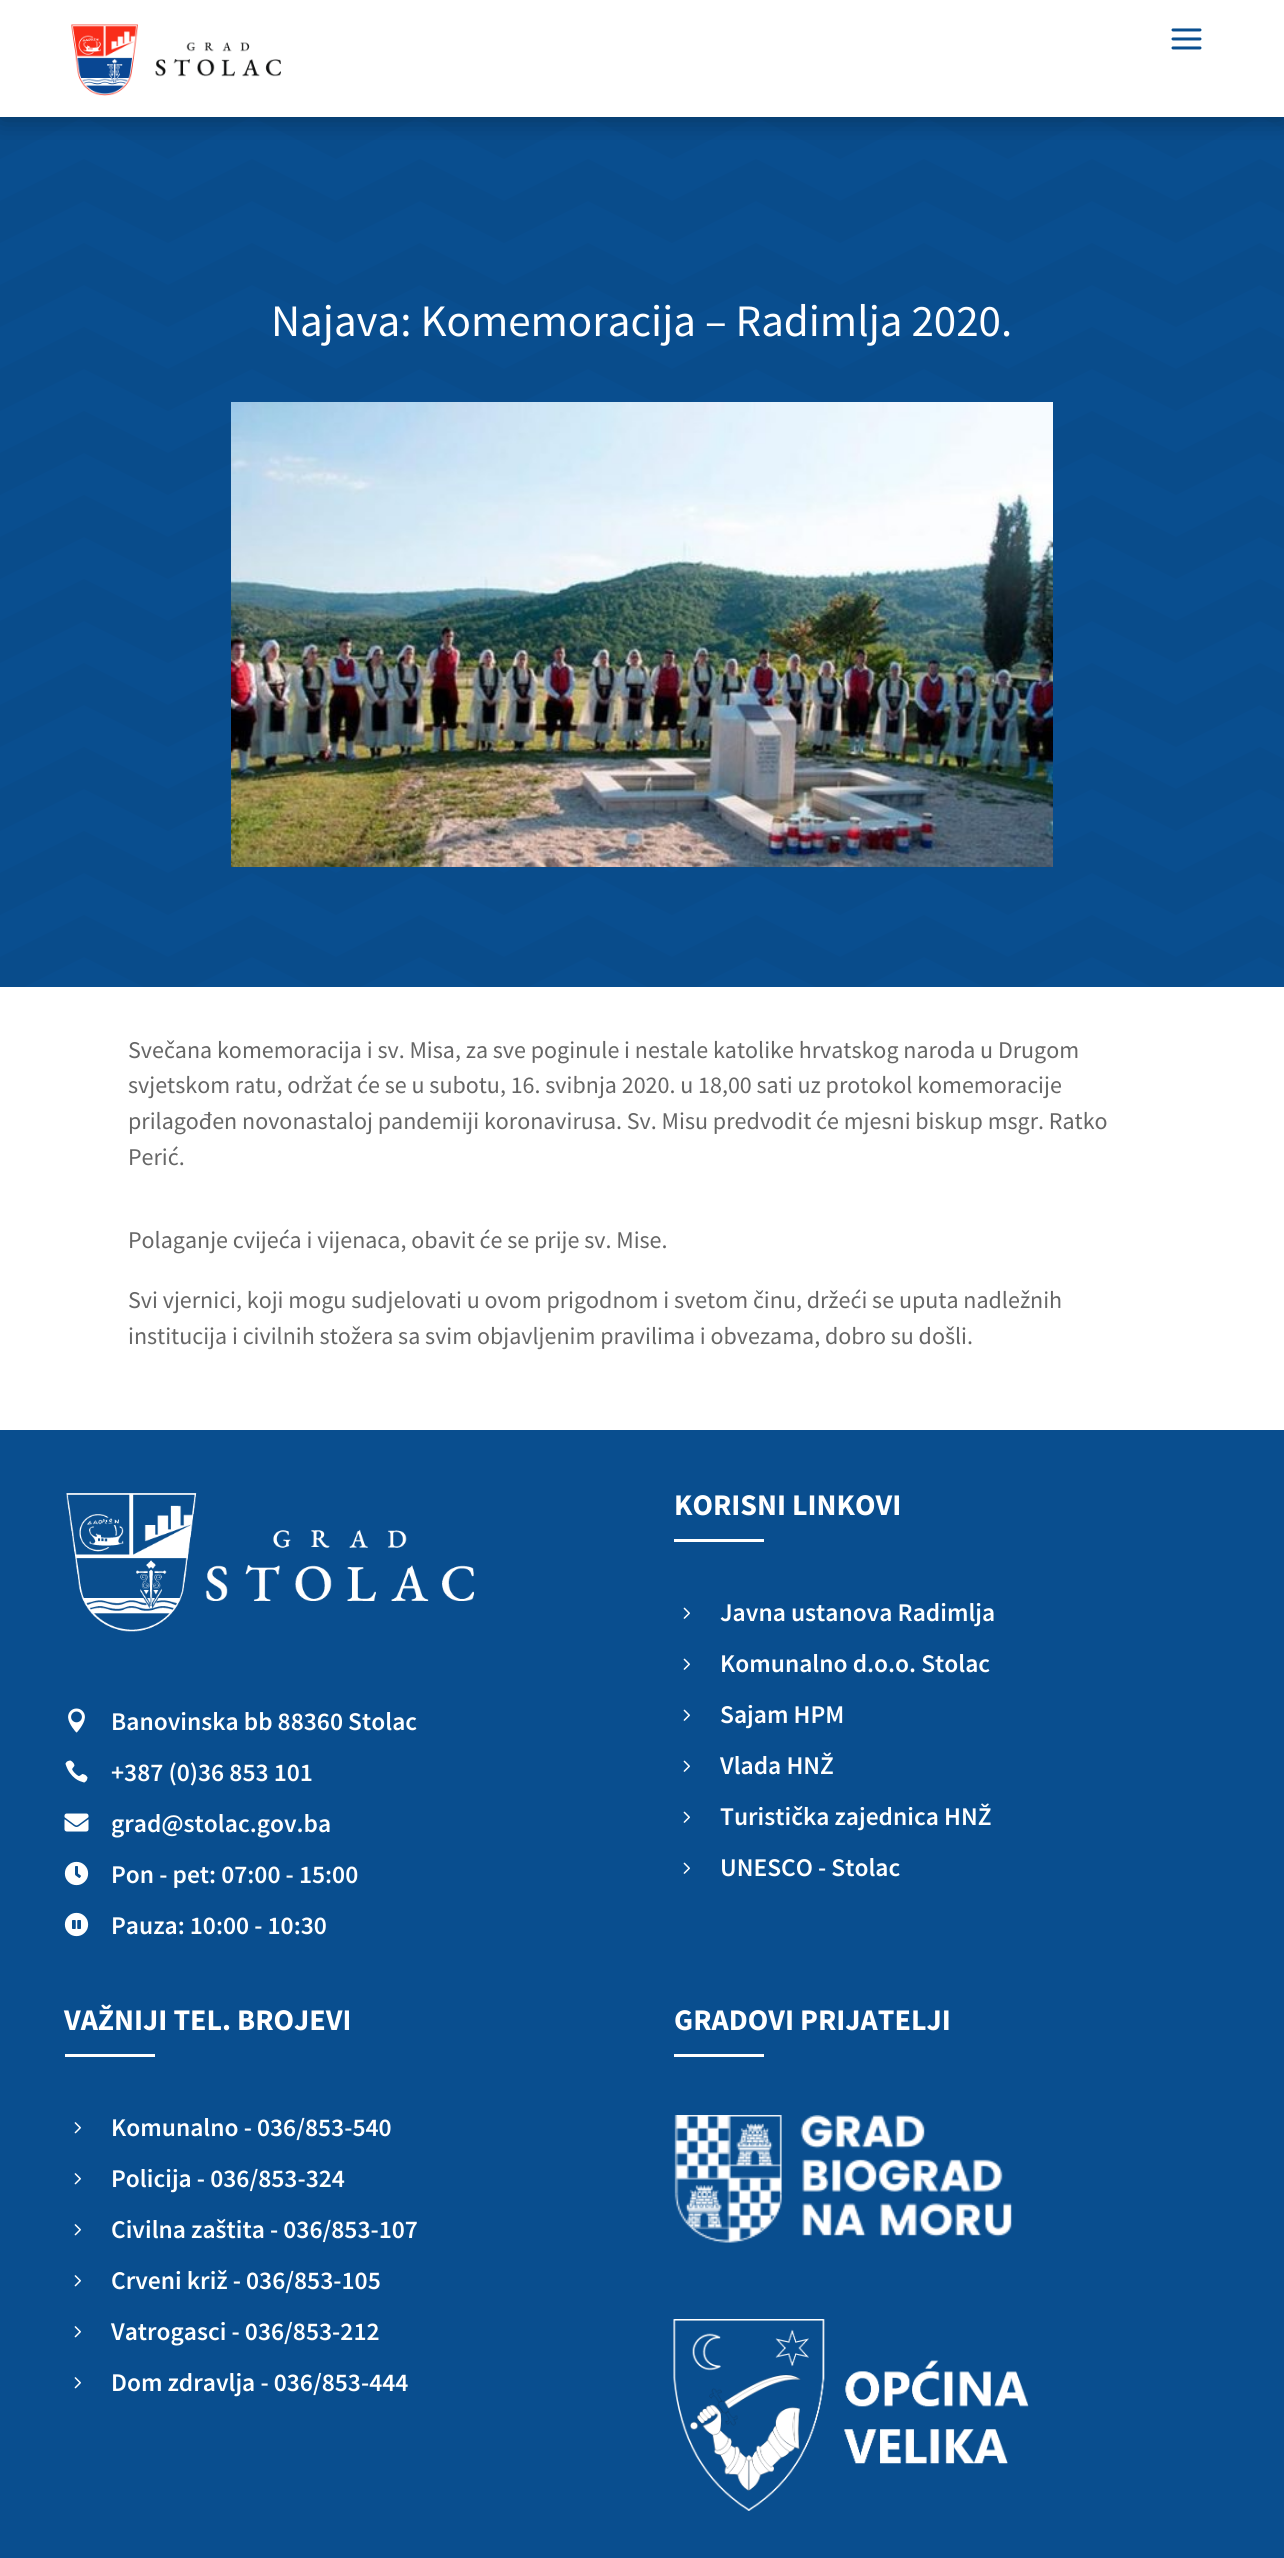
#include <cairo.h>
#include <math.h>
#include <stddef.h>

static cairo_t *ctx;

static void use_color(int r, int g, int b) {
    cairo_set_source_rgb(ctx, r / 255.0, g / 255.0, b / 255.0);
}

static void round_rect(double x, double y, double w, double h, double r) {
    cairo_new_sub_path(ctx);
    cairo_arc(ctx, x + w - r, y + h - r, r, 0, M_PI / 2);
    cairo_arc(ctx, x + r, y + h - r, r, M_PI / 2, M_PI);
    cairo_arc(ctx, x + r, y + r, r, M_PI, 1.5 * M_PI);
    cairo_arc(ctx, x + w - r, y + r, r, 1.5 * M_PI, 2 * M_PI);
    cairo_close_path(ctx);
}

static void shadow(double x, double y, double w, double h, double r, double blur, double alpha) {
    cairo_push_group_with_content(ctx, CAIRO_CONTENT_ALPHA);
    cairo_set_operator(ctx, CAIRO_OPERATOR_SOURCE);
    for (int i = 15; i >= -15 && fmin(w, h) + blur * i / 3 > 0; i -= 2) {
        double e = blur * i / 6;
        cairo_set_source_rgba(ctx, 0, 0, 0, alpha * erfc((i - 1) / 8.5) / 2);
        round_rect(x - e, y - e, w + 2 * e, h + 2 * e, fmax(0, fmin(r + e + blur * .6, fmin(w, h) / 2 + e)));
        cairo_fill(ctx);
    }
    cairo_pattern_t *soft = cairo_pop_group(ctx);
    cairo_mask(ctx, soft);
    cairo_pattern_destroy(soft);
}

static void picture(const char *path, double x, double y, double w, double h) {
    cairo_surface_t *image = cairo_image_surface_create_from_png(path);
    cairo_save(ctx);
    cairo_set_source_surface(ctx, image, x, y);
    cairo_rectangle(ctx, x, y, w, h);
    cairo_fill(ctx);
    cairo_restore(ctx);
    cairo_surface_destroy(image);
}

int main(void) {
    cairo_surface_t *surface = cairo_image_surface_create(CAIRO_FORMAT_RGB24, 1284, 2558);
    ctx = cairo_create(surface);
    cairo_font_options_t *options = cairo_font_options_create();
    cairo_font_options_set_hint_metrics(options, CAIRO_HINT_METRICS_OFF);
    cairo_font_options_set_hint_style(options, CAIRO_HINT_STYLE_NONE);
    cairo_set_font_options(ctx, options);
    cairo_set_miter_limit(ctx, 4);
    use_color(255, 255, 255);
    cairo_paint(ctx);
    use_color(9, 78, 143);
    cairo_rectangle(ctx, 0, 117, 1284, 870);
    cairo_fill(ctx);
    picture("img3.png", 0, 117, 1284, 870);
    cairo_save(ctx);
    cairo_rectangle(ctx, 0, 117, 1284, 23);
    cairo_clip(ctx);
    use_color(0, 0, 0);
    shadow(0, 3, 1284, 117, 0, 13.5, 0.3);
    cairo_restore(ctx);
    picture("img1.png", 71, 24, 210, 72);
    picture("img2.png", 1171, 28, 31, 22);
    cairo_select_font_face(ctx, "Source Sans Pro", CAIRO_FONT_SLANT_NORMAL, CAIRO_FONT_WEIGHT_NORMAL);
    cairo_set_font_size(ctx, 45);
    use_color(255, 255, 255);
    cairo_move_to(ctx, 271, 336);
    cairo_show_text(ctx, "Najava: Komemoracija – Radimlja 2020.");
    picture("img4.png", 231, 402, 822, 465);
    cairo_set_font_size(ctx, 24);
    use_color(102, 102, 102);
    cairo_move_to(ctx, 128, 1058);
    cairo_show_text(ctx, "Svečana komemoracija i sv. Misa, za sve poginule i nestale katolike hrvatskog naroda u Drugom");
    cairo_move_to(ctx, 128, 1093);
    cairo_show_text(ctx, "svjetskom ratu, održat će se u subotu, 16. svibnja 2020. u 18,00 sati uz protokol komemoracije");
    cairo_move_to(ctx, 128, 1129);
    cairo_show_text(ctx, "prilagođen novonastaloj pandemiji koronavirusa. Sv. Misu predvodit će mjesni biskup msgr. Ratko");
    cairo_move_to(ctx, 128, 1165);
    cairo_show_text(ctx, "Perić.");
    cairo_move_to(ctx, 128, 1248);
    cairo_show_text(ctx, "Polaganje cvijeća i vijenaca, obavit će se prije sv. Mise.");
    cairo_move_to(ctx, 128, 1308);
    cairo_show_text(ctx, "Svi vjernici, koji mogu sudjelovati u ovom prigodnom i svetom činu, držeći se uputa nadležnih");
    cairo_move_to(ctx, 128, 1344);
    cairo_show_text(ctx, "institucija i civilnih stožera sa svim objavljenim pravilima i obvezama, dobro su došli.");
    use_color(9, 78, 143);
    cairo_rectangle(ctx, 0, 1430, 1284, 1128);
    cairo_fill(ctx);
    picture("img5.png", 66, 1493, 408, 139);
    picture("img6.png", 68, 1708, 17, 25);
    cairo_select_font_face(ctx, "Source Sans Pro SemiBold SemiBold", CAIRO_FONT_SLANT_NORMAL, CAIRO_FONT_WEIGHT_NORMAL);
    cairo_set_font_size(ctx, 25.5);
    use_color(255, 255, 255);
    cairo_move_to(ctx, 111, 1730);
    cairo_show_text(ctx, "Banovinska bb 88360 Stolac");
    picture("img7.png", 65, 1760, 23, 23);
    cairo_move_to(ctx, 111, 1781);
    cairo_show_text(ctx, "+387 (0)36 853 101");
    picture("img8.png", 64, 1813, 25, 19);
    cairo_move_to(ctx, 111, 1832);
    cairo_show_text(ctx, "grad@stolac.gov.ba");
    picture("img9.png", 64, 1861, 25, 25);
    cairo_move_to(ctx, 111, 1883);
    cairo_show_text(ctx, "Pon - pet: 07:00 - 15:00");
    picture("img10.png", 64, 1912, 25, 25);
    cairo_move_to(ctx, 111, 1934);
    cairo_show_text(ctx, "Pauza: 10:00 - 10:30");
    cairo_select_font_face(ctx, "Source Sans Pro", CAIRO_FONT_SLANT_NORMAL, CAIRO_FONT_WEIGHT_BOLD);
    cairo_set_font_size(ctx, 30);
    cairo_move_to(ctx, 674, 1515);
    cairo_show_text(ctx, "KORISNI LINKOVI");
    cairo_rectangle(ctx, 674, 1539, 90, 3);
    cairo_fill(ctx);
    picture("img11.png", 683, 1607, 7, 12);
    cairo_select_font_face(ctx, "Source Sans Pro SemiBold SemiBold", CAIRO_FONT_SLANT_NORMAL, CAIRO_FONT_WEIGHT_NORMAL);
    cairo_set_font_size(ctx, 25.5);
    cairo_move_to(ctx, 720, 1621);
    cairo_show_text(ctx, "Javna ustanova Radimlja");
    picture("img11.png", 683, 1658, 7, 12);
    cairo_move_to(ctx, 720, 1672);
    cairo_show_text(ctx, "Komunalno d.o.o. Stolac");
    picture("img11.png", 683, 1709, 7, 12);
    cairo_move_to(ctx, 720, 1723);
    cairo_show_text(ctx, "Sajam HPM");
    picture("img11.png", 683, 1760, 7, 12);
    cairo_move_to(ctx, 720, 1774);
    cairo_show_text(ctx, "Vlada HNŽ");
    picture("img11.png", 683, 1811, 7, 12);
    cairo_move_to(ctx, 720, 1825);
    cairo_show_text(ctx, "Turistička zajednica HNŽ");
    picture("img11.png", 683, 1862, 7, 12);
    cairo_move_to(ctx, 720, 1876);
    cairo_show_text(ctx, "UNESCO - Stolac");
    cairo_select_font_face(ctx, "Source Sans Pro", CAIRO_FONT_SLANT_NORMAL, CAIRO_FONT_WEIGHT_BOLD);
    cairo_set_font_size(ctx, 30);
    cairo_move_to(ctx, 64, 2030);
    cairo_show_text(ctx, "VAŽNIJI TEL. BROJEVI");
    cairo_rectangle(ctx, 65, 2054, 90, 3);
    cairo_fill(ctx);
    picture("img12.png", 74, 2122, 7, 12);
    cairo_select_font_face(ctx, "Source Sans Pro SemiBold SemiBold", CAIRO_FONT_SLANT_NORMAL, CAIRO_FONT_WEIGHT_NORMAL);
    cairo_set_font_size(ctx, 25.5);
    cairo_move_to(ctx, 111, 2136);
    cairo_show_text(ctx, "Komunalno - 036/853-540");
    picture("img12.png", 74, 2173, 7, 12);
    cairo_move_to(ctx, 111, 2187);
    cairo_show_text(ctx, "Policija - 036/853-324");
    picture("img12.png", 74, 2224, 7, 12);
    cairo_move_to(ctx, 111, 2238);
    cairo_show_text(ctx, "Civilna zaštita - 036/853-107");
    picture("img12.png", 74, 2275, 7, 12);
    cairo_move_to(ctx, 111, 2289);
    cairo_show_text(ctx, "Crveni križ - 036/853-105");
    picture("img12.png", 74, 2326, 7, 12);
    cairo_move_to(ctx, 111, 2340);
    cairo_show_text(ctx, "Vatrogasci - 036/853-212");
    picture("img12.png", 74, 2377, 7, 12);
    cairo_move_to(ctx, 111, 2391);
    cairo_show_text(ctx, "Dom zdravlja - 036/853-444");
    cairo_select_font_face(ctx, "Source Sans Pro", CAIRO_FONT_SLANT_NORMAL, CAIRO_FONT_WEIGHT_BOLD);
    cairo_set_font_size(ctx, 30);
    cairo_move_to(ctx, 674, 2030);
    cairo_show_text(ctx, "GRADOVI PRIJATELJI");
    cairo_rectangle(ctx, 674, 2054, 90, 3);
    cairo_fill(ctx);
    picture("img13.png", 674, 2115, 338, 128);
    picture("img14.png", 673, 2319, 356, 192);
    cairo_surface_write_to_png(surface, "result.png");
    cairo_font_options_destroy(options);
    cairo_destroy(ctx);
    cairo_surface_destroy(surface);
    return 0;
}
